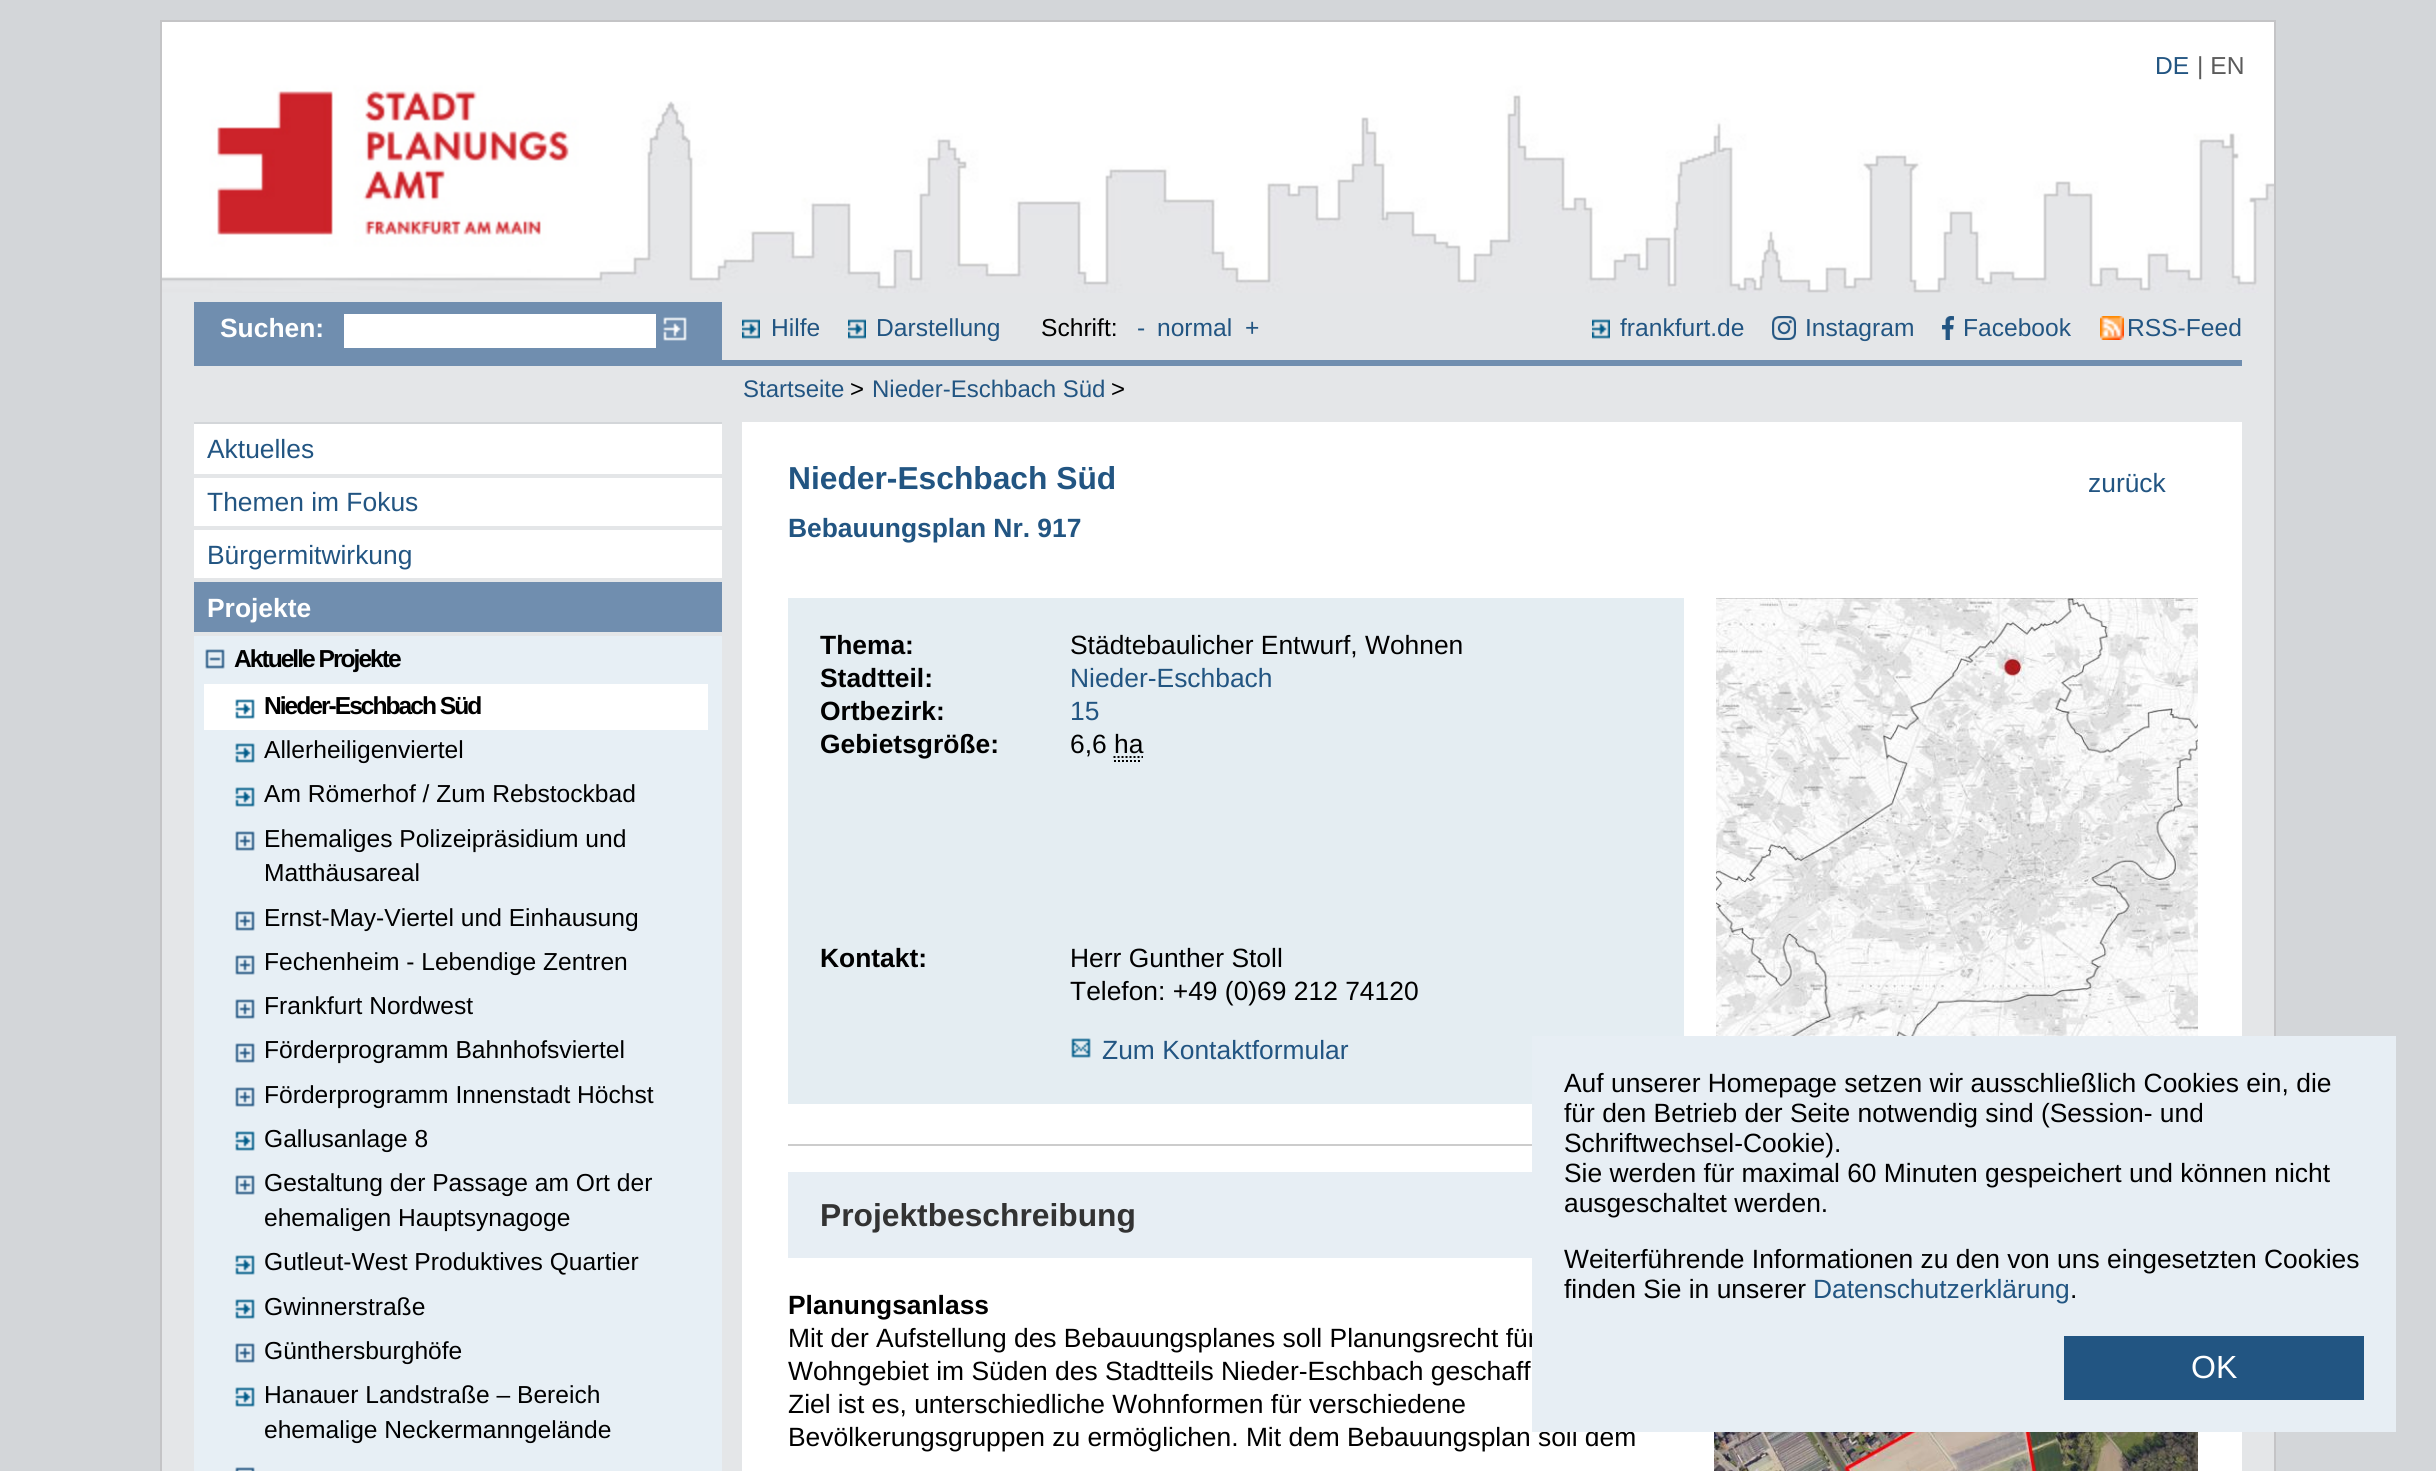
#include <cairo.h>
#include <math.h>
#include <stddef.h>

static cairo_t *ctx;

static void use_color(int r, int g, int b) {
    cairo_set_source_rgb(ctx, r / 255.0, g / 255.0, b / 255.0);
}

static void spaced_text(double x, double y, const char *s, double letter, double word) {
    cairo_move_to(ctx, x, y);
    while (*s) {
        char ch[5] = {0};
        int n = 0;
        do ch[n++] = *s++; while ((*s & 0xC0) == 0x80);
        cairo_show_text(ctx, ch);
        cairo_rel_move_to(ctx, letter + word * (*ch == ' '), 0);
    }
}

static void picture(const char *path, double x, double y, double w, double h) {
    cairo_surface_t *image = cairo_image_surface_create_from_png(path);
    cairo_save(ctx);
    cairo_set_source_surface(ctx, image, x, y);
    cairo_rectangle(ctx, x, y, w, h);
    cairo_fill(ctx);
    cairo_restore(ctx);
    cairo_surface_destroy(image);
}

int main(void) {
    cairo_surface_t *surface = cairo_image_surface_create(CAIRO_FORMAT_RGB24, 2436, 1471);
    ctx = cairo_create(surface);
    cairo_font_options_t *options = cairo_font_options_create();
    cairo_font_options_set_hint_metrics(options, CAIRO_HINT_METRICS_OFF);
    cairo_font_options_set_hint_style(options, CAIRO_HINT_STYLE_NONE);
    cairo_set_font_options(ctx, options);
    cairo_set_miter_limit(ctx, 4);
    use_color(211, 214, 217);
    cairo_paint(ctx);
    use_color(228, 230, 232);
    cairo_rectangle(ctx, 162, 293, 2112, 1178);
    cairo_fill(ctx);
    cairo_rectangle(ctx, 161, 21, 2114, 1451);
    use_color(196, 196, 198);
    cairo_stroke(ctx);
    picture("img1.png", 162, 22, 2112, 271);
    cairo_select_font_face(ctx, "Liberation Sans", CAIRO_FONT_SLANT_NORMAL, CAIRO_FONT_WEIGHT_NORMAL);
    cairo_set_font_size(ctx, 24.6);
    use_color(34, 85, 130);
    cairo_move_to(ctx, 2155, 74);
    cairo_show_text(ctx, "DE");
    use_color(91, 91, 91);
    cairo_move_to(ctx, 2197, 74);
    cairo_show_text(ctx, "| EN");
    use_color(112, 142, 175);
    cairo_rectangle(ctx, 194, 360, 2048, 6);
    cairo_fill(ctx);
    cairo_rectangle(ctx, 194, 302, 528, 58);
    cairo_fill(ctx);
    cairo_select_font_face(ctx, "Liberation Sans", CAIRO_FONT_SLANT_NORMAL, CAIRO_FONT_WEIGHT_BOLD);
    cairo_set_font_size(ctx, 26.4);
    use_color(255, 255, 255);
    cairo_move_to(ctx, 220, 337);
    cairo_show_text(ctx, "Suchen:");
    cairo_rectangle(ctx, 344, 314, 312, 34);
    cairo_fill(ctx);
    picture("img2.png", 663, 317, 24, 24);
    picture("img3.png", 742, 319, 18, 20);
    cairo_select_font_face(ctx, "Liberation Sans", CAIRO_FONT_SLANT_NORMAL, CAIRO_FONT_WEIGHT_NORMAL);
    cairo_set_font_size(ctx, 24.6);
    use_color(34, 85, 130);
    cairo_move_to(ctx, 771, 336);
    cairo_show_text(ctx, "Hilfe");
    picture("img3.png", 848, 319, 18, 20);
    cairo_move_to(ctx, 876, 336);
    cairo_show_text(ctx, "Darstellung");
    use_color(0, 0, 0);
    cairo_move_to(ctx, 1041, 336);
    cairo_show_text(ctx, "Schrift:");
    use_color(34, 85, 130);
    cairo_move_to(ctx, 1137, 336);
    cairo_show_text(ctx, "-");
    cairo_move_to(ctx, 1157, 336);
    cairo_show_text(ctx, "normal");
    cairo_move_to(ctx, 1245, 336);
    cairo_show_text(ctx, "+");
    picture("img3.png", 1592, 319, 18, 20);
    cairo_move_to(ctx, 1620, 336);
    cairo_show_text(ctx, "frankfurt.de");
    picture("img4.png", 1772, 316, 24, 24);
    cairo_move_to(ctx, 1805, 336);
    cairo_show_text(ctx, "Instagram");
    picture("img5.png", 1942, 316, 12, 24);
    cairo_move_to(ctx, 1963, 336);
    cairo_show_text(ctx, "Facebook");
    picture("img6.png", 2100, 316, 24, 24);
    cairo_move_to(ctx, 2127, 336);
    cairo_show_text(ctx, "RSS-Feed");
    cairo_set_font_size(ctx, 24);
    cairo_move_to(ctx, 743, 397);
    cairo_show_text(ctx, "Startseite");
    use_color(0, 0, 0);
    cairo_move_to(ctx, 850, 397);
    cairo_show_text(ctx, ">");
    use_color(34, 85, 130);
    cairo_move_to(ctx, 872, 397);
    cairo_show_text(ctx, "Nieder-Eschbach Süd");
    use_color(0, 0, 0);
    cairo_move_to(ctx, 1111, 397);
    cairo_show_text(ctx, ">");
    use_color(211, 214, 217);
    cairo_rectangle(ctx, 194, 422, 528, 2);
    cairo_fill(ctx);
    use_color(255, 255, 255);
    cairo_rectangle(ctx, 194, 424, 528, 50);
    cairo_fill(ctx);
    cairo_set_font_size(ctx, 26.4);
    use_color(34, 85, 130);
    cairo_move_to(ctx, 207, 458);
    cairo_show_text(ctx, "Aktuelles");
    use_color(255, 255, 255);
    cairo_rectangle(ctx, 194, 478, 528, 48);
    cairo_fill(ctx);
    use_color(34, 85, 130);
    cairo_move_to(ctx, 207, 511);
    cairo_show_text(ctx, "Themen im Fokus");
    use_color(255, 255, 255);
    cairo_rectangle(ctx, 194, 530, 528, 48);
    cairo_fill(ctx);
    use_color(34, 85, 130);
    cairo_move_to(ctx, 207, 564);
    cairo_show_text(ctx, "Bürgermitwirkung");
    use_color(112, 142, 175);
    cairo_rectangle(ctx, 194, 582, 528, 50);
    cairo_fill(ctx);
    cairo_select_font_face(ctx, "Liberation Sans", CAIRO_FONT_SLANT_NORMAL, CAIRO_FONT_WEIGHT_BOLD);
    use_color(255, 255, 255);
    cairo_move_to(ctx, 207, 617);
    cairo_show_text(ctx, "Projekte");
    use_color(231, 239, 245);
    cairo_rectangle(ctx, 194, 636, 528, 835);
    cairo_fill(ctx);
    picture("img7.png", 205, 649, 20, 20);
    cairo_set_font_size(ctx, 24.6);
    use_color(0, 0, 0);
    spaced_text(234, 667, "Aktuelle Projekte", -2, 0);
    use_color(255, 255, 255);
    cairo_rectangle(ctx, 204, 684, 504, 46);
    cairo_fill(ctx);
    picture("img8.png", 235, 699, 20, 20);
    use_color(0, 0, 0);
    spaced_text(264, 714, "Nieder-Eschbach Süd", -2, 0);
    picture("img9.png", 235, 743, 20, 20);
    cairo_select_font_face(ctx, "Liberation Sans", CAIRO_FONT_SLANT_NORMAL, CAIRO_FONT_WEIGHT_NORMAL);
    cairo_move_to(ctx, 264, 758);
    cairo_show_text(ctx, "Allerheiligenviertel");
    picture("img9.png", 235, 787, 20, 20);
    cairo_move_to(ctx, 264, 802);
    cairo_show_text(ctx, "Am Römerhof / Zum Rebstockbad");
    picture("img10.png", 235, 831, 20, 20);
    cairo_move_to(ctx, 264, 847);
    cairo_show_text(ctx, "Ehemaliges Polizeipräsidium und");
    cairo_move_to(ctx, 264, 881);
    cairo_show_text(ctx, "Matthäusareal");
    picture("img10.png", 235, 911, 20, 20);
    cairo_move_to(ctx, 264, 926);
    cairo_show_text(ctx, "Ernst-May-Viertel und Einhausung");
    picture("img10.png", 235, 955, 20, 20);
    cairo_move_to(ctx, 264, 970);
    cairo_show_text(ctx, "Fechenheim - Lebendige Zentren");
    picture("img10.png", 235, 999, 20, 20);
    cairo_move_to(ctx, 264, 1014);
    cairo_show_text(ctx, "Frankfurt Nordwest");
    picture("img10.png", 235, 1043, 20, 20);
    cairo_move_to(ctx, 264, 1058);
    cairo_show_text(ctx, "Förderprogramm Bahnhofsviertel");
    picture("img10.png", 235, 1087, 20, 20);
    cairo_move_to(ctx, 264, 1103);
    cairo_show_text(ctx, "Förderprogramm Innenstadt Höchst");
    picture("img9.png", 235, 1131, 20, 20);
    cairo_move_to(ctx, 264, 1147);
    cairo_show_text(ctx, "Gallusanlage 8");
    picture("img10.png", 235, 1175, 20, 20);
    cairo_move_to(ctx, 264, 1191);
    cairo_show_text(ctx, "Gestaltung der Passage am Ort der");
    cairo_move_to(ctx, 264, 1226);
    cairo_show_text(ctx, "ehemaligen Hauptsynagoge");
    picture("img9.png", 235, 1255, 20, 20);
    cairo_move_to(ctx, 264, 1270);
    cairo_show_text(ctx, "Gutleut-West Produktives Quartier");
    picture("img9.png", 235, 1299, 20, 20);
    cairo_move_to(ctx, 264, 1315);
    cairo_show_text(ctx, "Gwinnerstraße");
    picture("img10.png", 235, 1343, 20, 20);
    cairo_move_to(ctx, 264, 1359);
    cairo_show_text(ctx, "Günthersburghöfe");
    picture("img9.png", 235, 1387, 20, 20);
    cairo_move_to(ctx, 264, 1403);
    cairo_show_text(ctx, "Hanauer Landstraße – Bereich");
    cairo_move_to(ctx, 264, 1438);
    cairo_show_text(ctx, "ehemalige Neckermanngelände");
    picture("img11.png", 235, 1467, 20, 4);
    use_color(255, 255, 255);
    cairo_rectangle(ctx, 742, 422, 1500, 1049);
    cairo_fill(ctx);
    cairo_select_font_face(ctx, "Liberation Sans", CAIRO_FONT_SLANT_NORMAL, CAIRO_FONT_WEIGHT_BOLD);
    cairo_set_font_size(ctx, 31.75);
    use_color(34, 85, 130);
    cairo_move_to(ctx, 788, 489);
    cairo_show_text(ctx, "Nieder-Eschbach Süd");
    cairo_set_font_size(ctx, 26.4);
    cairo_move_to(ctx, 788, 537);
    cairo_show_text(ctx, "Bebauungsplan Nr. 917");
    cairo_select_font_face(ctx, "Liberation Sans", CAIRO_FONT_SLANT_NORMAL, CAIRO_FONT_WEIGHT_NORMAL);
    cairo_move_to(ctx, 2088, 492);
    cairo_show_text(ctx, "zurück");
    use_color(204, 204, 204);
    cairo_rectangle(ctx, 788, 1144, 744, 2);
    cairo_fill(ctx);
    use_color(228, 237, 242);
    cairo_rectangle(ctx, 788, 598, 896, 506);
    cairo_fill(ctx);
    cairo_select_font_face(ctx, "Liberation Sans", CAIRO_FONT_SLANT_NORMAL, CAIRO_FONT_WEIGHT_BOLD);
    use_color(0, 0, 0);
    cairo_move_to(ctx, 820, 654);
    cairo_show_text(ctx, "Thema:");
    cairo_select_font_face(ctx, "Liberation Sans", CAIRO_FONT_SLANT_NORMAL, CAIRO_FONT_WEIGHT_NORMAL);
    cairo_move_to(ctx, 1070, 654);
    cairo_show_text(ctx, "Städtebaulicher Entwurf, Wohnen");
    cairo_select_font_face(ctx, "Liberation Sans", CAIRO_FONT_SLANT_NORMAL, CAIRO_FONT_WEIGHT_BOLD);
    cairo_move_to(ctx, 820, 687);
    cairo_show_text(ctx, "Stadtteil:");
    cairo_select_font_face(ctx, "Liberation Sans", CAIRO_FONT_SLANT_NORMAL, CAIRO_FONT_WEIGHT_NORMAL);
    use_color(34, 85, 130);
    cairo_move_to(ctx, 1070, 687);
    cairo_show_text(ctx, "Nieder-Eschbach");
    cairo_select_font_face(ctx, "Liberation Sans", CAIRO_FONT_SLANT_NORMAL, CAIRO_FONT_WEIGHT_BOLD);
    use_color(0, 0, 0);
    cairo_move_to(ctx, 820, 720);
    cairo_show_text(ctx, "Ortbezirk:");
    cairo_select_font_face(ctx, "Liberation Sans", CAIRO_FONT_SLANT_NORMAL, CAIRO_FONT_WEIGHT_NORMAL);
    use_color(34, 85, 130);
    cairo_move_to(ctx, 1070, 720);
    cairo_show_text(ctx, "15");
    cairo_select_font_face(ctx, "Liberation Sans", CAIRO_FONT_SLANT_NORMAL, CAIRO_FONT_WEIGHT_BOLD);
    use_color(0, 0, 0);
    cairo_move_to(ctx, 820, 753);
    cairo_show_text(ctx, "Gebietsgröße:");
    cairo_select_font_face(ctx, "Liberation Sans", CAIRO_FONT_SLANT_NORMAL, CAIRO_FONT_WEIGHT_NORMAL);
    cairo_move_to(ctx, 1070, 753);
    cairo_show_text(ctx, "6,6 ha");
    cairo_new_path(ctx);
    cairo_move_to(ctx, 1114, 761);
    cairo_line_to(ctx, 1142, 761);
    cairo_move_to(ctx, 1113.5, 757);
    cairo_line_to(ctx, 1143, 757);
    cairo_set_dash(ctx, (double[]){2, 2}, 2, 0);
    cairo_stroke(ctx);
    cairo_select_font_face(ctx, "Liberation Sans", CAIRO_FONT_SLANT_NORMAL, CAIRO_FONT_WEIGHT_BOLD);
    cairo_move_to(ctx, 820, 967);
    cairo_show_text(ctx, "Kontakt:");
    cairo_select_font_face(ctx, "Liberation Sans", CAIRO_FONT_SLANT_NORMAL, CAIRO_FONT_WEIGHT_NORMAL);
    cairo_move_to(ctx, 1070, 967);
    cairo_show_text(ctx, "Herr Gunther Stoll");
    cairo_move_to(ctx, 1070, 1000);
    cairo_show_text(ctx, "Telefon: +49 (0)69 212 74120");
    picture("img12.png", 1071, 1038, 20, 20);
    use_color(34, 85, 130);
    cairo_move_to(ctx, 1102, 1059);
    cairo_show_text(ctx, "Zum Kontaktformular");
    picture("img13.png", 1716, 598, 482, 438);
    use_color(231, 238, 244);
    cairo_rectangle(ctx, 788, 1172, 744, 86);
    cairo_fill(ctx);
    cairo_select_font_face(ctx, "Liberation Sans", CAIRO_FONT_SLANT_NORMAL, CAIRO_FONT_WEIGHT_BOLD);
    cairo_set_font_size(ctx, 31.75);
    use_color(51, 51, 51);
    cairo_move_to(ctx, 820, 1226);
    cairo_show_text(ctx, "Projektbeschreibung");
    cairo_set_font_size(ctx, 26.4);
    use_color(0, 0, 0);
    cairo_move_to(ctx, 788, 1314);
    cairo_show_text(ctx, "Planungsanlass");
    cairo_select_font_face(ctx, "Liberation Sans", CAIRO_FONT_SLANT_NORMAL, CAIRO_FONT_WEIGHT_NORMAL);
    cairo_move_to(ctx, 788, 1347);
    cairo_show_text(ctx, "Mit der Aufstellung des Bebauungsplanes soll Planungsrecht für");
    cairo_move_to(ctx, 788, 1380);
    cairo_show_text(ctx, "Wohngebiet im Süden des Stadtteils Nieder-Eschbach geschaff");
    cairo_move_to(ctx, 788, 1413);
    cairo_show_text(ctx, "Ziel ist es, unterschiedliche Wohnformen für verschiedene");
    cairo_move_to(ctx, 788, 1446);
    cairo_show_text(ctx, "Bevölkerungsgruppen zu ermöglichen. Mit dem Bebauungsplan soll dem");
    picture("img14.png", 1714, 1432, 484, 39);
    use_color(231, 238, 244);
    cairo_rectangle(ctx, 1532, 1036, 864, 396);
    cairo_fill(ctx);
    use_color(0, 0, 0);
    cairo_move_to(ctx, 1564, 1092);
    cairo_show_text(ctx, "Auf unserer Homepage setzen wir ausschließlich Cookies ein, die");
    cairo_move_to(ctx, 1564, 1122);
    cairo_show_text(ctx, "für den Betrieb der Seite notwendig sind (Session- und");
    cairo_move_to(ctx, 1564, 1152);
    cairo_show_text(ctx, "Schriftwechsel-Cookie).");
    cairo_move_to(ctx, 1564, 1182);
    cairo_show_text(ctx, "Sie werden für maximal 60 Minuten gespeichert und können nicht");
    cairo_move_to(ctx, 1564, 1212);
    cairo_show_text(ctx, "ausgeschaltet werden.");
    cairo_move_to(ctx, 1564, 1268);
    cairo_show_text(ctx, "Weiterführende Informationen zu den von uns eingesetzten Cookies");
    cairo_move_to(ctx, 1564, 1298);
    cairo_show_text(ctx, "finden Sie in unserer");
    use_color(34, 85, 130);
    cairo_move_to(ctx, 1813, 1298);
    cairo_show_text(ctx, "Datenschutzerklärung");
    use_color(0, 0, 0);
    cairo_move_to(ctx, 2070, 1298);
    cairo_show_text(ctx, ".");
    use_color(34, 85, 130);
    cairo_rectangle(ctx, 2064, 1336, 300, 64);
    cairo_fill(ctx);
    cairo_set_font_size(ctx, 32);
    use_color(255, 255, 255);
    cairo_move_to(ctx, 2191, 1378);
    cairo_show_text(ctx, "OK");
    cairo_surface_write_to_png(surface, "result.png");
    cairo_font_options_destroy(options);
    cairo_destroy(ctx);
    cairo_surface_destroy(surface);
    return 0;
}
